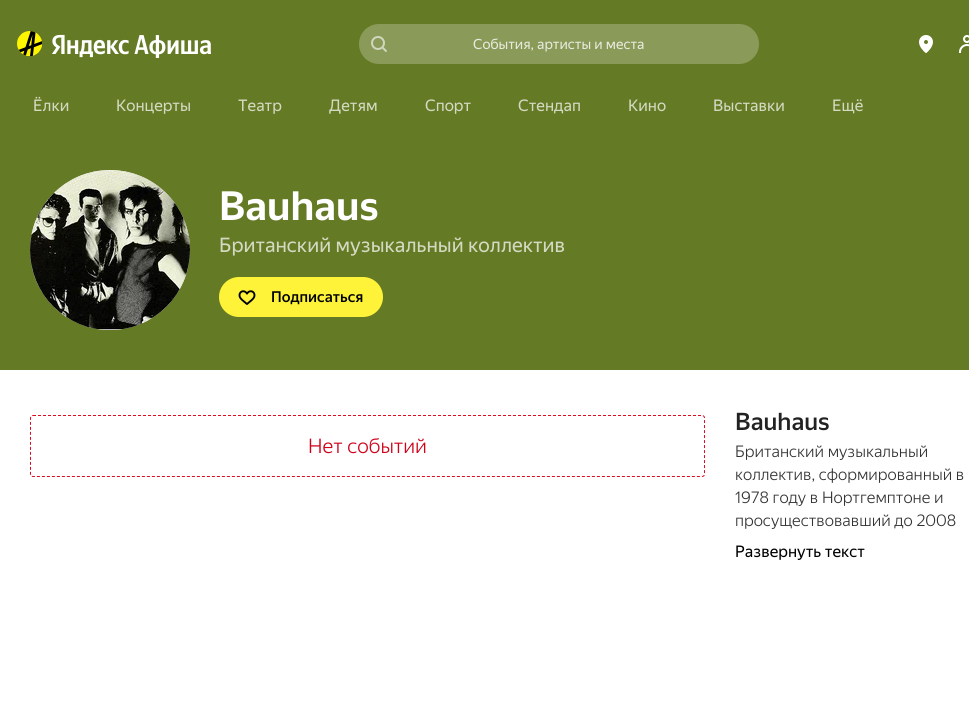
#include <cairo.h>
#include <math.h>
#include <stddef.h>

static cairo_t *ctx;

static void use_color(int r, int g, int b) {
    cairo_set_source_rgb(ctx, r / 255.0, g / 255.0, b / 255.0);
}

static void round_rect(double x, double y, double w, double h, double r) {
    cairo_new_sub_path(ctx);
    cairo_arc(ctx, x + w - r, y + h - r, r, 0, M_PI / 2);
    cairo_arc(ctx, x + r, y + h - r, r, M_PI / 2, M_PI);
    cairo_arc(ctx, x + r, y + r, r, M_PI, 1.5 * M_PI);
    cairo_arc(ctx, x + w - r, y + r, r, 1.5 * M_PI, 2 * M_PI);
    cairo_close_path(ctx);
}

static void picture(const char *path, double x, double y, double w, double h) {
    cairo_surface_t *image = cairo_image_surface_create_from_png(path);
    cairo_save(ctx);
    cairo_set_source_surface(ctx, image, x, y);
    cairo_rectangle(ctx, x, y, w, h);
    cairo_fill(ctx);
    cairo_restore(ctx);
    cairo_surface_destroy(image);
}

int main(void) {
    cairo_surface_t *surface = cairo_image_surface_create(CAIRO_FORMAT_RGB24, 969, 716);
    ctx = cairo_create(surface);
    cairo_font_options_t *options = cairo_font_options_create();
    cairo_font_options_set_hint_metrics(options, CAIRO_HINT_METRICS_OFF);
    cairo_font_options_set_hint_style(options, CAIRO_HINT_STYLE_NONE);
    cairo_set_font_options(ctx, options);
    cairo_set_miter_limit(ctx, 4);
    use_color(255, 255, 255);
    cairo_paint(ctx);
    use_color(101, 122, 37);
    cairo_rectangle(ctx, 0, 0, 969, 370);
    cairo_fill(ctx);
    picture("img1.png", 17, 31, 25, 26);
    picture("img2.png", 52, 34, 159, 24);
    picture("img3.png", 371, 36, 16, 16);
    cairo_select_font_face(ctx, "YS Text", CAIRO_FONT_SLANT_NORMAL, CAIRO_FONT_WEIGHT_NORMAL);
    cairo_set_font_size(ctx, 14);
    use_color(224, 228, 211);
    cairo_move_to(ctx, 473, 49);
    cairo_show_text(ctx, "События, артисты и места");
    cairo_set_source_rgba(ctx, 1, 1, 1, 0.24);
    round_rect(359, 24, 400, 40, 20);
    cairo_fill(ctx);
    picture("img4.png", 919, 35, 14, 18);
    picture("img5.png", 959, 35, 10, 18);
    cairo_set_font_size(ctx, 16);
    use_color(212, 218, 194);
    cairo_move_to(ctx, 33, 111);
    cairo_show_text(ctx, "Ёлки");
    cairo_move_to(ctx, 116, 111);
    cairo_show_text(ctx, "Концерты");
    cairo_move_to(ctx, 238, 111);
    cairo_show_text(ctx, "Театр");
    cairo_move_to(ctx, 329, 111);
    cairo_show_text(ctx, "Детям");
    cairo_move_to(ctx, 425, 111);
    cairo_show_text(ctx, "Спорт");
    cairo_move_to(ctx, 518, 111);
    cairo_show_text(ctx, "Стендап");
    cairo_move_to(ctx, 628, 111);
    cairo_show_text(ctx, "Кино");
    cairo_move_to(ctx, 713, 111);
    cairo_show_text(ctx, "Выставки");
    cairo_move_to(ctx, 832, 111);
    cairo_show_text(ctx, "Ещё");
    use_color(216, 216, 216);
    cairo_new_path(ctx);
    cairo_arc(ctx, 110, 250, 80, 0, 2 * M_PI);
    cairo_fill(ctx);
    picture("img6.png", 30, 170, 160, 160);
    cairo_select_font_face(ctx, "YS Text", CAIRO_FONT_SLANT_NORMAL, CAIRO_FONT_WEIGHT_BOLD);
    cairo_set_font_size(ctx, 40);
    use_color(255, 255, 255);
    cairo_move_to(ctx, 219, 220);
    cairo_show_text(ctx, "Bauhaus");
    cairo_select_font_face(ctx, "YS Text", CAIRO_FONT_SLANT_NORMAL, CAIRO_FONT_WEIGHT_NORMAL);
    cairo_set_font_size(ctx, 20);
    use_color(212, 218, 194);
    cairo_move_to(ctx, 219, 252);
    cairo_show_text(ctx, "Британский музыкальный коллектив");
    use_color(254, 243, 57);
    round_rect(219, 277, 164, 40, 20);
    cairo_fill(ctx);
    picture("img7.png", 238, 290, 18, 15);
    cairo_select_font_face(ctx, "YS Text Medium", CAIRO_FONT_SLANT_NORMAL, CAIRO_FONT_WEIGHT_NORMAL);
    cairo_set_font_size(ctx, 15);
    use_color(0, 0, 0);
    cairo_move_to(ctx, 271, 302);
    cairo_show_text(ctx, "Подписаться");
    cairo_new_path(ctx);
    cairo_move_to(ctx, 33, 415.5);
    cairo_line_to(ctx, 702, 415.5);
    cairo_curve_to(ctx, 703.5, 415.5, 704.5, 416.5, 704.5, 418);
    cairo_line_to(ctx, 704.5, 474);
    cairo_curve_to(ctx, 704.5, 475.5, 703.5, 476.5, 702, 476.5);
    cairo_line_to(ctx, 33, 476.5);
    cairo_curve_to(ctx, 31.5, 476.5, 30.5, 475.5, 30.5, 474);
    cairo_line_to(ctx, 30.5, 418);
    cairo_curve_to(ctx, 30.5, 416.5, 31.5, 415.5, 33, 415.5);
    cairo_close_path(ctx);
    use_color(223, 11, 34);
    cairo_set_line_width(ctx, 1);
    cairo_set_dash(ctx, (double[]){3, 2}, 2, 0);
    cairo_stroke(ctx);
    cairo_select_font_face(ctx, "YS Text Light", CAIRO_FONT_SLANT_NORMAL, CAIRO_FONT_WEIGHT_NORMAL);
    cairo_set_font_size(ctx, 20);
    use_color(208, 2, 27);
    cairo_move_to(ctx, 308, 453);
    cairo_show_text(ctx, "Нет событий");
    cairo_select_font_face(ctx, "YS Text Medium", CAIRO_FONT_SLANT_NORMAL, CAIRO_FONT_WEIGHT_NORMAL);
    cairo_set_font_size(ctx, 24);
    use_color(34, 34, 34);
    cairo_move_to(ctx, 735, 430);
    cairo_show_text(ctx, "Bauhaus");
    cairo_select_font_face(ctx, "YS Text Light", CAIRO_FONT_SLANT_NORMAL, CAIRO_FONT_WEIGHT_NORMAL);
    cairo_set_font_size(ctx, 16);
    use_color(51, 51, 51);
    cairo_move_to(ctx, 735, 457);
    cairo_show_text(ctx, "Британский музыкальный");
    cairo_move_to(ctx, 735, 480);
    cairo_show_text(ctx, "коллектив, сформированный в");
    cairo_select_font_face(ctx, "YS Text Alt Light", CAIRO_FONT_SLANT_NORMAL, CAIRO_FONT_WEIGHT_NORMAL);
    cairo_move_to(ctx, 735, 503);
    cairo_show_text(ctx, "1978 году в Нортгемптоне и");
    cairo_move_to(ctx, 735, 526);
    cairo_show_text(ctx, "просуществовавший до 2008");
    cairo_select_font_face(ctx, "YS Text", CAIRO_FONT_SLANT_NORMAL, CAIRO_FONT_WEIGHT_NORMAL);
    use_color(0, 0, 0);
    cairo_move_to(ctx, 735, 557);
    cairo_show_text(ctx, "Развернуть текст");
    cairo_surface_write_to_png(surface, "result.png");
    cairo_font_options_destroy(options);
    cairo_destroy(ctx);
    cairo_surface_destroy(surface);
    return 0;
}
